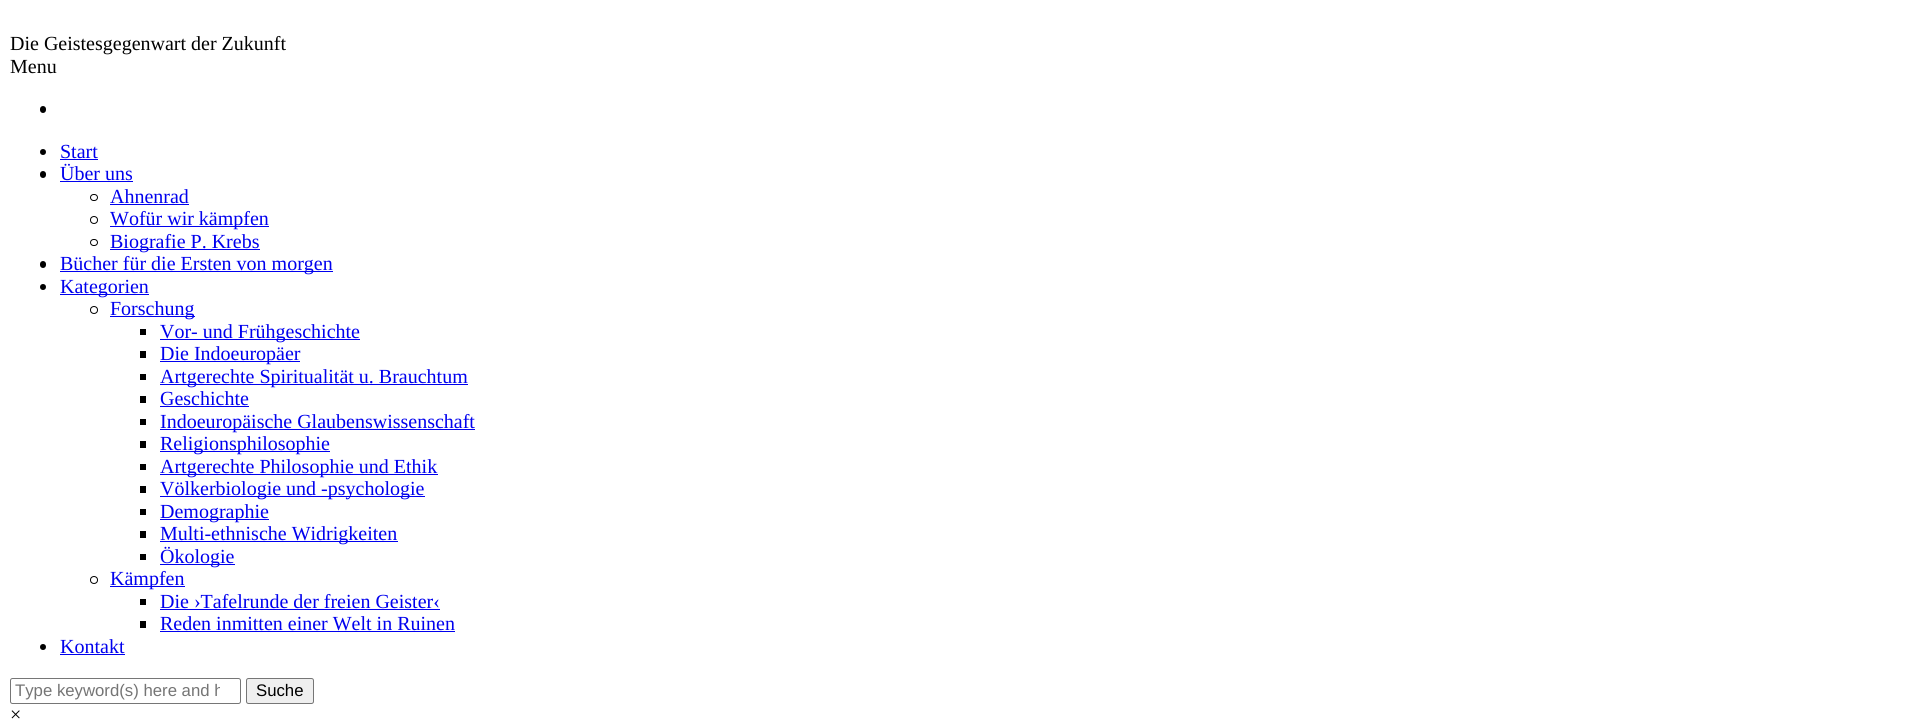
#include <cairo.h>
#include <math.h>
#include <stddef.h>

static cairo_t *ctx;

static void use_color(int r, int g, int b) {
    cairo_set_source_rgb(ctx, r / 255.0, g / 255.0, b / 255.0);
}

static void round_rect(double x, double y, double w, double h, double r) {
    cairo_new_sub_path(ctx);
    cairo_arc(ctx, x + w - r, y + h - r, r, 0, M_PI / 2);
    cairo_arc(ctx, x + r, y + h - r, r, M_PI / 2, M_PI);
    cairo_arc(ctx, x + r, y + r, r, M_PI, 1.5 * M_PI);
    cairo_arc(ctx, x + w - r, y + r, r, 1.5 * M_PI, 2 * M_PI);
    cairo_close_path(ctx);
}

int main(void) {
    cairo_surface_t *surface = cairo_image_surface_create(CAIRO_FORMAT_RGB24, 1908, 725);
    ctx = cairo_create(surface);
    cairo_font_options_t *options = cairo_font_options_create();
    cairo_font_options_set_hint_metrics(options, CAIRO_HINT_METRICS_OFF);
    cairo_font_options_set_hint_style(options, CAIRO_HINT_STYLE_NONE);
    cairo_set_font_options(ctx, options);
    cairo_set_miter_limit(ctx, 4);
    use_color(255, 255, 255);
    cairo_paint(ctx);
    cairo_select_font_face(ctx, "Liberation Serif", CAIRO_FONT_SLANT_NORMAL, CAIRO_FONT_WEIGHT_NORMAL);
    cairo_set_font_size(ctx, 20);
    use_color(0, 0, 0);
    cairo_move_to(ctx, 10, 50);
    cairo_show_text(ctx, "Die Geistesgegenwart der Zukunft");
    cairo_move_to(ctx, 10, 73);
    cairo_show_text(ctx, "Menu");
    round_rect(40, 106, 6, 7, 3);
    cairo_fill(ctx);
    cairo_arc(ctx, 43, 152, 3, 0, 2 * M_PI);
    cairo_fill(ctx);
    use_color(0, 0, 238);
    cairo_move_to(ctx, 60, 158);
    cairo_show_text(ctx, "Start");
    cairo_rectangle(ctx, 60, 159, 38, 1);
    cairo_fill(ctx);
    use_color(0, 0, 0);
    round_rect(40, 171, 6, 7, 3);
    cairo_fill(ctx);
    use_color(0, 0, 238);
    cairo_move_to(ctx, 60, 180);
    cairo_show_text(ctx, "Über uns");
    cairo_rectangle(ctx, 60, 181, 73, 1);
    cairo_fill(ctx);
    round_rect(90.5, 194.5, 7, 6, 3);
    use_color(0, 0, 0);
    cairo_set_line_width(ctx, 1);
    cairo_stroke(ctx);
    use_color(0, 0, 238);
    cairo_move_to(ctx, 110, 203);
    cairo_show_text(ctx, "Ahnenrad");
    cairo_rectangle(ctx, 110, 204, 79, 1);
    cairo_fill(ctx);
    cairo_arc(ctx, 94, 220, 3.5, 0, 2 * M_PI);
    use_color(0, 0, 0);
    cairo_stroke(ctx);
    use_color(0, 0, 238);
    cairo_rectangle(ctx, 110, 226, 159, 1);
    cairo_fill(ctx);
    cairo_move_to(ctx, 110, 225);
    cairo_show_text(ctx, "Wofür wir kämpfen");
    round_rect(90.5, 239.5, 7, 6, 3);
    use_color(0, 0, 0);
    cairo_stroke(ctx);
    use_color(0, 0, 238);
    cairo_rectangle(ctx, 110, 249, 150, 1);
    cairo_fill(ctx);
    cairo_move_to(ctx, 110, 248);
    cairo_show_text(ctx, "Biografie P. Krebs");
    use_color(0, 0, 0);
    round_rect(40, 261, 6, 7, 3);
    cairo_fill(ctx);
    use_color(0, 0, 238);
    cairo_rectangle(ctx, 60, 271, 273, 1);
    cairo_fill(ctx);
    cairo_move_to(ctx, 60, 270);
    cairo_show_text(ctx, "Bücher für die Ersten von morgen");
    use_color(0, 0, 0);
    cairo_new_path(ctx);
    cairo_arc(ctx, 43, 287, 3, 0, 2 * M_PI);
    cairo_fill(ctx);
    use_color(0, 0, 238);
    cairo_rectangle(ctx, 60, 294, 89, 1);
    cairo_fill(ctx);
    cairo_move_to(ctx, 60, 293);
    cairo_show_text(ctx, "Kategorien");
    cairo_new_path(ctx);
    cairo_arc(ctx, 94, 310, 3.5, 0, 2 * M_PI);
    use_color(0, 0, 0);
    cairo_stroke(ctx);
    use_color(0, 0, 238);
    cairo_rectangle(ctx, 110, 316, 85, 1);
    cairo_fill(ctx);
    cairo_move_to(ctx, 110, 315);
    cairo_show_text(ctx, "Forschung");
    use_color(0, 0, 0);
    cairo_rectangle(ctx, 140, 329, 6, 6);
    cairo_fill(ctx);
    use_color(0, 0, 238);
    cairo_rectangle(ctx, 160, 339, 200, 1);
    cairo_fill(ctx);
    cairo_move_to(ctx, 160, 338);
    cairo_show_text(ctx, "Vor- und Frühgeschichte");
    use_color(0, 0, 0);
    cairo_rectangle(ctx, 140, 351, 6, 7);
    cairo_fill(ctx);
    use_color(0, 0, 238);
    cairo_rectangle(ctx, 160, 361, 140, 1);
    cairo_fill(ctx);
    cairo_move_to(ctx, 160, 360);
    cairo_show_text(ctx, "Die Indoeuropäer");
    use_color(0, 0, 0);
    cairo_rectangle(ctx, 140, 374, 6, 6);
    cairo_fill(ctx);
    use_color(0, 0, 238);
    cairo_rectangle(ctx, 160, 384, 308, 1);
    cairo_fill(ctx);
    cairo_move_to(ctx, 160, 383);
    cairo_show_text(ctx, "Artgerechte Spiritualität u. Brauchtum");
    use_color(0, 0, 0);
    cairo_rectangle(ctx, 140, 396, 6, 7);
    cairo_fill(ctx);
    use_color(0, 0, 238);
    cairo_move_to(ctx, 160, 405);
    cairo_show_text(ctx, "Geschichte");
    cairo_rectangle(ctx, 160, 406, 89, 1);
    cairo_fill(ctx);
    use_color(0, 0, 0);
    cairo_rectangle(ctx, 140, 419, 6, 6);
    cairo_fill(ctx);
    use_color(0, 0, 238);
    cairo_rectangle(ctx, 160, 429, 315, 1);
    cairo_fill(ctx);
    cairo_move_to(ctx, 160, 428);
    cairo_show_text(ctx, "Indoeuropäische Glaubenswissenschaft");
    use_color(0, 0, 0);
    cairo_rectangle(ctx, 140, 441, 6, 7);
    cairo_fill(ctx);
    use_color(0, 0, 238);
    cairo_rectangle(ctx, 160, 451, 170, 1);
    cairo_fill(ctx);
    cairo_move_to(ctx, 160, 450);
    cairo_show_text(ctx, "Religionsphilosophie");
    use_color(0, 0, 0);
    cairo_rectangle(ctx, 140, 464, 6, 6);
    cairo_fill(ctx);
    use_color(0, 0, 238);
    cairo_rectangle(ctx, 160, 474, 278, 1);
    cairo_fill(ctx);
    cairo_move_to(ctx, 160, 473);
    cairo_show_text(ctx, "Artgerechte Philosophie und Ethik");
    use_color(0, 0, 0);
    cairo_rectangle(ctx, 140, 486, 6, 7);
    cairo_fill(ctx);
    use_color(0, 0, 238);
    cairo_rectangle(ctx, 160, 496, 265, 1);
    cairo_fill(ctx);
    cairo_move_to(ctx, 160, 495);
    cairo_show_text(ctx, "Völkerbiologie und -psychologie");
    use_color(0, 0, 0);
    cairo_rectangle(ctx, 140, 509, 6, 6);
    cairo_fill(ctx);
    use_color(0, 0, 238);
    cairo_rectangle(ctx, 160, 519, 109, 1);
    cairo_fill(ctx);
    cairo_move_to(ctx, 160, 518);
    cairo_show_text(ctx, "Demographie");
    use_color(0, 0, 0);
    cairo_rectangle(ctx, 140, 531, 6, 7);
    cairo_fill(ctx);
    use_color(0, 0, 238);
    cairo_rectangle(ctx, 160, 541, 238, 1);
    cairo_fill(ctx);
    cairo_move_to(ctx, 160, 540);
    cairo_show_text(ctx, "Multi-ethnische Widrigkeiten");
    use_color(0, 0, 0);
    cairo_rectangle(ctx, 140, 554, 6, 6);
    cairo_fill(ctx);
    use_color(0, 0, 238);
    cairo_rectangle(ctx, 160, 564, 75, 1);
    cairo_fill(ctx);
    cairo_move_to(ctx, 160, 563);
    cairo_show_text(ctx, "Ökologie");
    cairo_new_path(ctx);
    cairo_arc(ctx, 94, 580, 3.5, 0, 2 * M_PI);
    use_color(0, 0, 0);
    cairo_stroke(ctx);
    use_color(0, 0, 238);
    cairo_rectangle(ctx, 110, 586, 75, 1);
    cairo_fill(ctx);
    cairo_move_to(ctx, 110, 585);
    cairo_show_text(ctx, "Kämpfen");
    use_color(0, 0, 0);
    cairo_rectangle(ctx, 140, 599, 6, 6);
    cairo_fill(ctx);
    use_color(0, 0, 238);
    cairo_move_to(ctx, 160, 608);
    cairo_show_text(ctx, "Die ›Tafelrunde der freien Geister‹");
    cairo_rectangle(ctx, 160, 609, 280, 1);
    cairo_fill(ctx);
    use_color(0, 0, 0);
    cairo_rectangle(ctx, 140, 621, 6, 7);
    cairo_fill(ctx);
    use_color(0, 0, 238);
    cairo_move_to(ctx, 160, 630);
    cairo_show_text(ctx, "Reden inmitten einer Welt in Ruinen");
    cairo_rectangle(ctx, 160, 631, 295, 1);
    cairo_fill(ctx);
    use_color(0, 0, 0);
    cairo_arc(ctx, 43, 647, 3, 0, 2 * M_PI);
    cairo_fill(ctx);
    use_color(0, 0, 238);
    cairo_move_to(ctx, 60, 653);
    cairo_show_text(ctx, "Kontakt");
    cairo_rectangle(ctx, 60, 654, 65, 1);
    cairo_fill(ctx);
    round_rect(10.5, 678.5, 230, 25, 2);
    use_color(118, 118, 118);
    cairo_stroke(ctx);
    cairo_save(ctx);
    cairo_rectangle(ctx, 15, 681, 205, 19);
    cairo_clip(ctx);
    cairo_select_font_face(ctx, "Liberation Sans", CAIRO_FONT_SLANT_NORMAL, CAIRO_FONT_WEIGHT_NORMAL);
    cairo_set_font_size(ctx, 16.75);
    use_color(117, 117, 117);
    cairo_move_to(ctx, 15, 696);
    cairo_show_text(ctx, "Type keyword(s) here and h");
    cairo_restore(ctx);
    use_color(239, 239, 239);
    round_rect(246.5, 678.5, 67, 25, 2);
    cairo_fill_preserve(ctx);
    use_color(118, 118, 118);
    cairo_stroke(ctx);
    cairo_select_font_face(ctx, "Liberation Sans", CAIRO_FONT_SLANT_NORMAL, CAIRO_FONT_WEIGHT_NORMAL);
    cairo_set_font_size(ctx, 16.75);
    use_color(0, 0, 0);
    cairo_move_to(ctx, 256, 696);
    cairo_show_text(ctx, "Suche");
    cairo_select_font_face(ctx, "Liberation Serif", CAIRO_FONT_SLANT_NORMAL, CAIRO_FONT_WEIGHT_NORMAL);
    cairo_set_font_size(ctx, 20);
    cairo_move_to(ctx, 10, 721);
    cairo_show_text(ctx, "×");
    cairo_surface_write_to_png(surface, "result.png");
    cairo_font_options_destroy(options);
    cairo_destroy(ctx);
    cairo_surface_destroy(surface);
    return 0;
}
